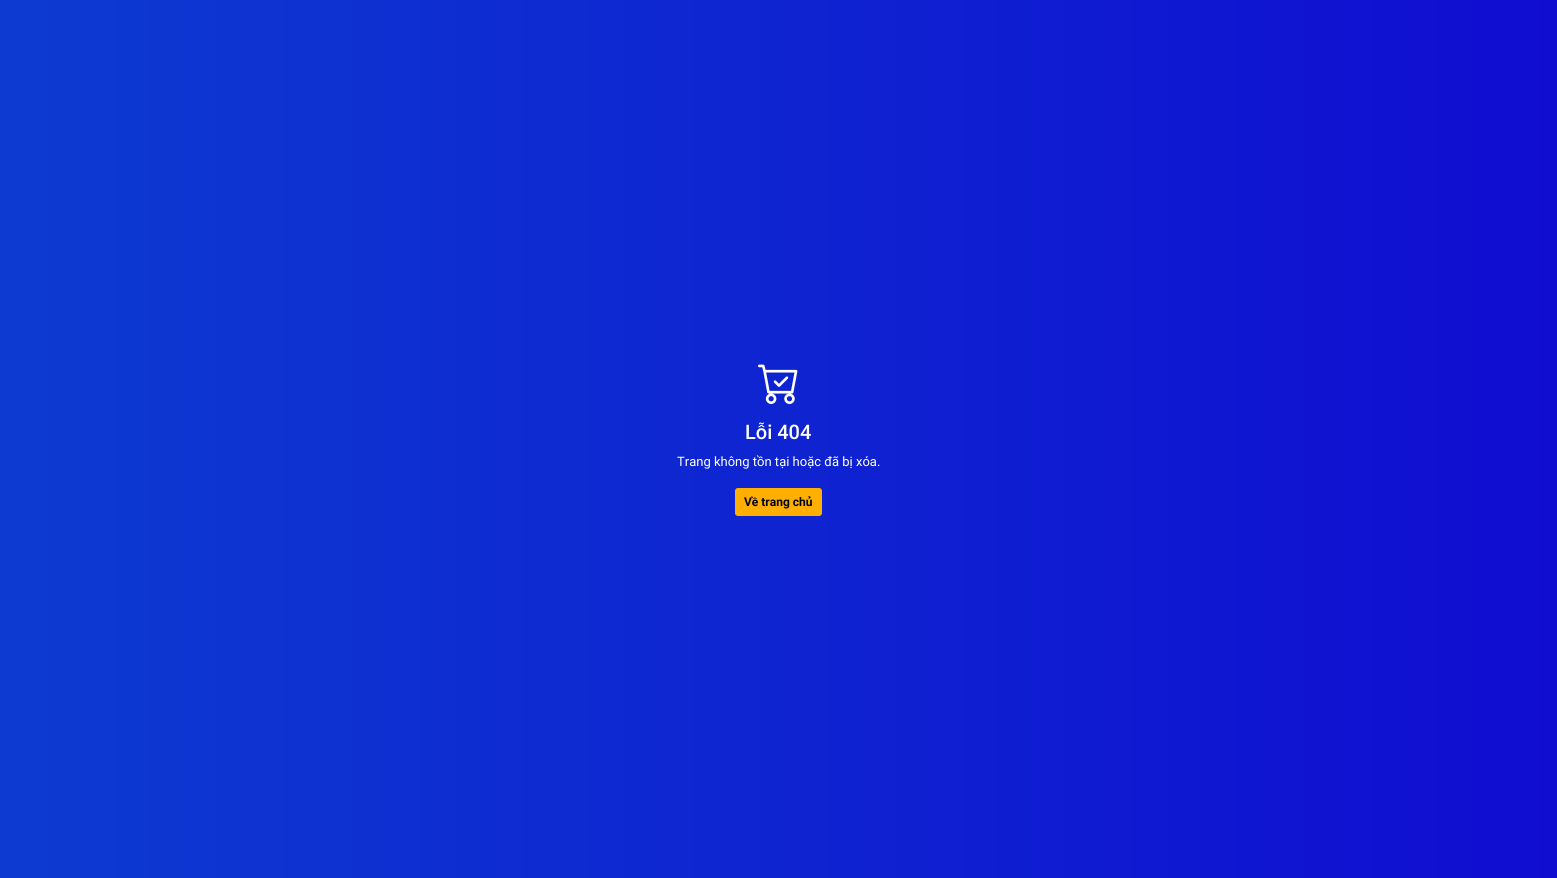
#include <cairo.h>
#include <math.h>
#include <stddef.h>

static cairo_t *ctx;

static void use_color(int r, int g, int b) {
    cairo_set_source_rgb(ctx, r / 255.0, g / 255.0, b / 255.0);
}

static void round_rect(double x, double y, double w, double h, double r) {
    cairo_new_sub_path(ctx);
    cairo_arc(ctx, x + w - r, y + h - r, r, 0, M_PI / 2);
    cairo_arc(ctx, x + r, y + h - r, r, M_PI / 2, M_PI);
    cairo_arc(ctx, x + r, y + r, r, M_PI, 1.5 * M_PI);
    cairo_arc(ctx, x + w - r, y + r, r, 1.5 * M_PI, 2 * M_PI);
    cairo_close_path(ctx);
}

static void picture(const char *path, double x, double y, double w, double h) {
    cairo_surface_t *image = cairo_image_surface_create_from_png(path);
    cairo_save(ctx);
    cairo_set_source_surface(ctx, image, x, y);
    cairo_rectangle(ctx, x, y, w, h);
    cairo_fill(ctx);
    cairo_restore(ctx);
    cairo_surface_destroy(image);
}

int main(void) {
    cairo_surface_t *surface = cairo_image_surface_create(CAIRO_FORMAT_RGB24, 1557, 878);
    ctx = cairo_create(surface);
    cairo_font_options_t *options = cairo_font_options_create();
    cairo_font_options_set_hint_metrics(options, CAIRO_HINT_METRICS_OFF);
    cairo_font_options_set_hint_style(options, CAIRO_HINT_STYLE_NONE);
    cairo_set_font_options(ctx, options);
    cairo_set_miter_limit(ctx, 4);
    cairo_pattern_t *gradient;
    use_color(255, 255, 255);
    cairo_paint(ctx);
    gradient = cairo_pattern_create_linear(1557, 439, 0, 439);
    cairo_pattern_add_color_stop_rgba(gradient, 0, 0.063, 0.051, 0.82, 1);
    cairo_pattern_add_color_stop_rgba(gradient, 1, 0.051, 0.231, 0.82, 1);
    cairo_set_source(ctx, gradient);
    cairo_pattern_destroy(gradient);
    cairo_rectangle(ctx, 0, 0, 1557, 878);
    cairo_fill(ctx);
    picture("img1.png", 758, 364, 40, 40);
    cairo_select_font_face(ctx, "Roboto Medium", CAIRO_FONT_SLANT_NORMAL, CAIRO_FONT_WEIGHT_NORMAL);
    cairo_set_font_size(ctx, 20);
    use_color(255, 255, 255);
    cairo_move_to(ctx, 745, 439);
    cairo_show_text(ctx, "Lỗi 404");
    cairo_select_font_face(ctx, "Roboto", CAIRO_FONT_SLANT_NORMAL, CAIRO_FONT_WEIGHT_NORMAL);
    cairo_set_font_size(ctx, 13);
    cairo_move_to(ctx, 677, 466);
    cairo_show_text(ctx, "Trang không tồn tại hoặc đã bị xóa.");
    use_color(255, 175, 0);
    round_rect(735.5, 488.5, 86, 27, 2.5);
    cairo_fill_preserve(ctx);
    cairo_set_line_width(ctx, 1);
    cairo_stroke(ctx);
    cairo_select_font_face(ctx, "Roboto", CAIRO_FONT_SLANT_NORMAL, CAIRO_FONT_WEIGHT_BOLD);
    cairo_set_font_size(ctx, 12);
    use_color(2, 3, 16);
    cairo_move_to(ctx, 744, 506);
    cairo_show_text(ctx, "Về trang chủ");
    cairo_surface_write_to_png(surface, "result.png");
    cairo_font_options_destroy(options);
    cairo_destroy(ctx);
    cairo_surface_destroy(surface);
    return 0;
}
